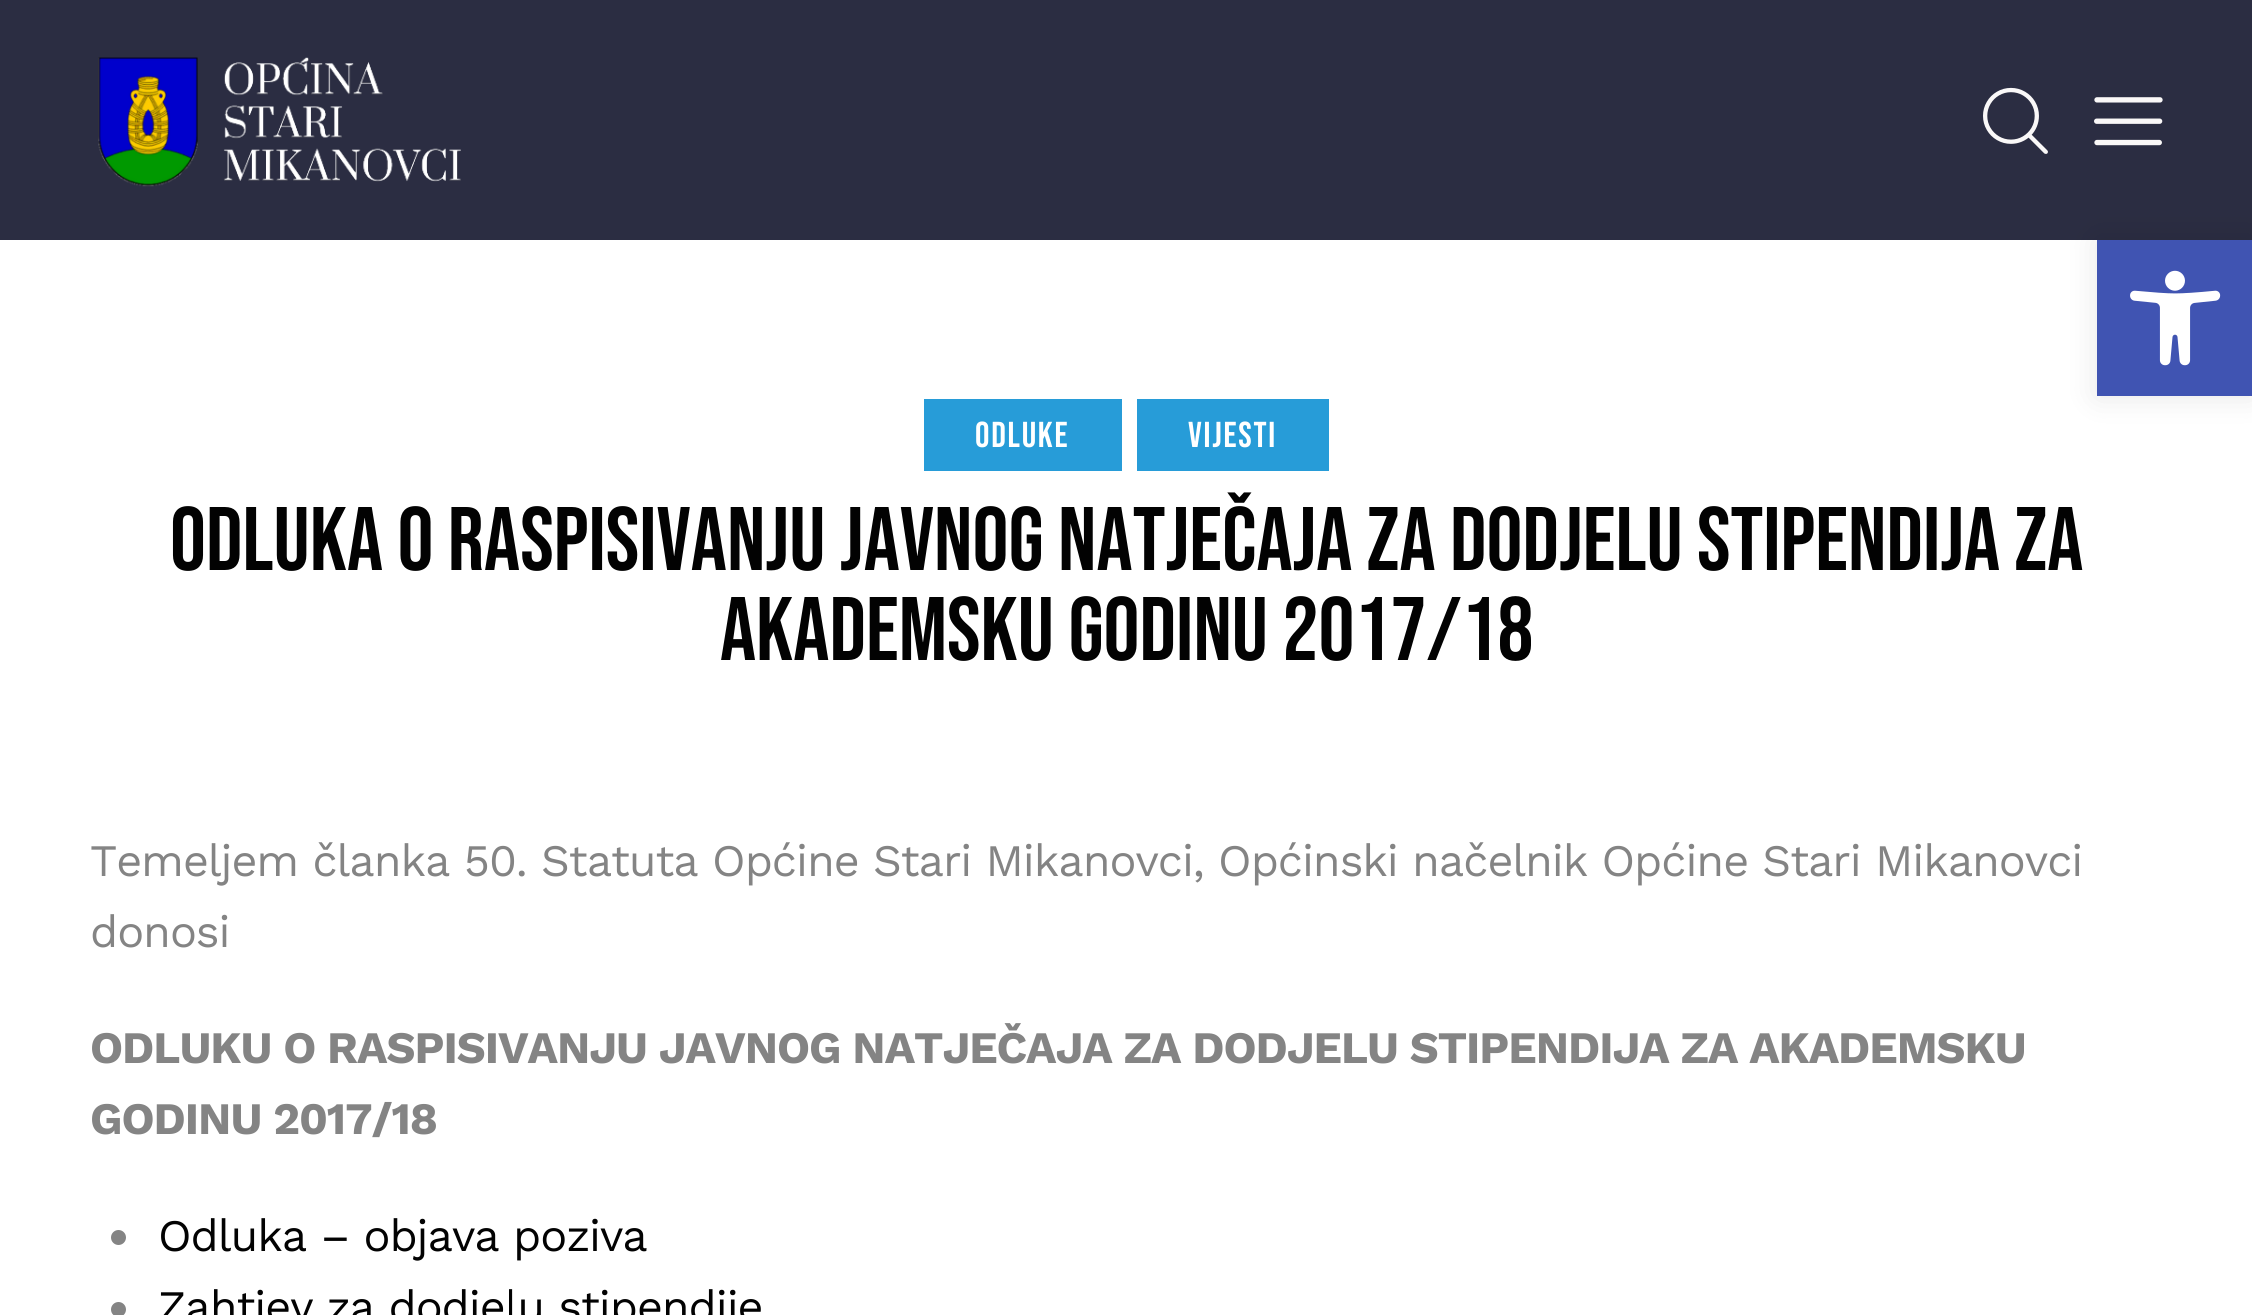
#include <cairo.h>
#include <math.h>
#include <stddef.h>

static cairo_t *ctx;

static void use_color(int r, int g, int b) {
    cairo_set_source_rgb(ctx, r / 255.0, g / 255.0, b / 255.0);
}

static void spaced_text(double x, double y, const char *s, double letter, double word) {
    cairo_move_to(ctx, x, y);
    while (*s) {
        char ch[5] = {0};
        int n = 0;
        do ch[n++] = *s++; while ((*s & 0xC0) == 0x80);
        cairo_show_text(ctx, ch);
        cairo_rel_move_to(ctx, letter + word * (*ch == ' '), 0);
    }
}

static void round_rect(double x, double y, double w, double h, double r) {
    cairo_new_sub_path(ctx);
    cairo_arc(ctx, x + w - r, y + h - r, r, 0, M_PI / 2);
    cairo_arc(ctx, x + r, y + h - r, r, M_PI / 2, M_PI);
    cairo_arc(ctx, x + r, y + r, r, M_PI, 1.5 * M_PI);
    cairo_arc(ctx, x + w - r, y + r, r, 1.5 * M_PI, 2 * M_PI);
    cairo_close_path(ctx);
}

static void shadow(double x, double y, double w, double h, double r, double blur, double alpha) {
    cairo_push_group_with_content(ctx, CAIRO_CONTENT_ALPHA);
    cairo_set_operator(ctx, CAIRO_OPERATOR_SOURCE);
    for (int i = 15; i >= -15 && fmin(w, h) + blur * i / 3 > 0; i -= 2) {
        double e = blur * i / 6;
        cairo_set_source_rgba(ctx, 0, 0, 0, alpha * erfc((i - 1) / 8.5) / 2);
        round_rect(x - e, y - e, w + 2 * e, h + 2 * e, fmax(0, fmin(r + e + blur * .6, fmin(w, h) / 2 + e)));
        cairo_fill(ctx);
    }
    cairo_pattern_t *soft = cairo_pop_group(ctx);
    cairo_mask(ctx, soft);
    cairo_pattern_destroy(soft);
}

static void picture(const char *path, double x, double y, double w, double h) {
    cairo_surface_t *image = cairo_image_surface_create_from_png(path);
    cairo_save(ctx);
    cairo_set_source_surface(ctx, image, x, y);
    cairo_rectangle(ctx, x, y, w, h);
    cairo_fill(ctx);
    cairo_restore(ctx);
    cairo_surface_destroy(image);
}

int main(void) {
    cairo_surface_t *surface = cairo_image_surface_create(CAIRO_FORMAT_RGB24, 2252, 1315);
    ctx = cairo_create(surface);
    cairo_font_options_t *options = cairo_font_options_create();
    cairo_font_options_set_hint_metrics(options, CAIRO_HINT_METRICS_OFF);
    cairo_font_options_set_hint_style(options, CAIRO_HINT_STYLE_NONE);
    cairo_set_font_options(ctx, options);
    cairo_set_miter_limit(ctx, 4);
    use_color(255, 255, 255);
    cairo_paint(ctx);
    use_color(43, 45, 66);
    cairo_rectangle(ctx, 0, 0, 2252, 240);
    cairo_fill(ctx);
    use_color(0, 0, 0);
    shadow(2097, 240, 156, 156, 0, 15, 0.1);
    use_color(64, 84, 178);
    cairo_rectangle(ctx, 2097, 240, 155, 156);
    cairo_fill(ctx);
    picture("img1.png", 2130, 270, 91, 96);
    picture("img2.png", 98, 57, 363, 130);
    picture("img3.png", 1983, 87, 65, 67);
    picture("img4.png", 2094, 97, 69, 49);
    use_color(39, 156, 216);
    cairo_rectangle(ctx, 924, 399, 198, 72);
    cairo_fill(ctx);
    cairo_select_font_face(ctx, "Bebas Neue", CAIRO_FONT_SLANT_NORMAL, CAIRO_FONT_WEIGHT_NORMAL);
    cairo_set_font_size(ctx, 36);
    use_color(255, 255, 255);
    spaced_text(975, 447, "ODLUKE", 1.75, 0);
    use_color(39, 156, 216);
    cairo_rectangle(ctx, 1137, 399, 192, 72);
    cairo_fill(ctx);
    use_color(255, 255, 255);
    spaced_text(1188, 447, "VIJESTI", 1.75, 0);
    cairo_set_font_size(ctx, 90);
    use_color(2, 2, 2);
    cairo_move_to(ctx, 170, 570);
    cairo_show_text(ctx, "Odluka o raspisivanju javnog natječaja za dodjelu stipendija za");
    cairo_move_to(ctx, 720, 660);
    cairo_show_text(ctx, "akademsku godinu 2017/18");
    cairo_select_font_face(ctx, "Work Sans", CAIRO_FONT_SLANT_NORMAL, CAIRO_FONT_WEIGHT_NORMAL);
    cairo_set_font_size(ctx, 45);
    use_color(132, 132, 132);
    spaced_text(90, 876, "Temeljem članka 50. Statuta Općine Stari Mikanovci, Općinski načelnik Općine Stari Mikanovci", -1.05, 0);
    spaced_text(90, 947, "donosi", -1.05, 0);
    cairo_select_font_face(ctx, "Work Sans", CAIRO_FONT_SLANT_NORMAL, CAIRO_FONT_WEIGHT_BOLD);
    spaced_text(90, 1063, "ODLUKU O RASPISIVANJU JAVNOG NATJEČAJA ZA DODJELU STIPENDIJA ZA AKADEMSKU", -1.05, 0);
    spaced_text(90, 1134, "GODINU 2017/18", -1.05, 0);
    cairo_new_path(ctx);
    cairo_arc(ctx, 118.5, 1237.5, 7.5, 0, 2 * M_PI);
    cairo_fill(ctx);
    cairo_select_font_face(ctx, "Work Sans", CAIRO_FONT_SLANT_NORMAL, CAIRO_FONT_WEIGHT_NORMAL);
    use_color(2, 2, 2);
    spaced_text(158, 1251, "Odluka – objava poziva", -1.05, 0);
    use_color(132, 132, 132);
    cairo_new_path(ctx);
    cairo_arc(ctx, 118.5, 1309.5, 7.5, 0, 2 * M_PI);
    cairo_fill(ctx);
    use_color(2, 2, 2);
    spaced_text(158, 1322, "Zahtjev za dodjelu stipendije", -1.05, 0);
    cairo_surface_write_to_png(surface, "result.png");
    cairo_font_options_destroy(options);
    cairo_destroy(ctx);
    cairo_surface_destroy(surface);
    return 0;
}
